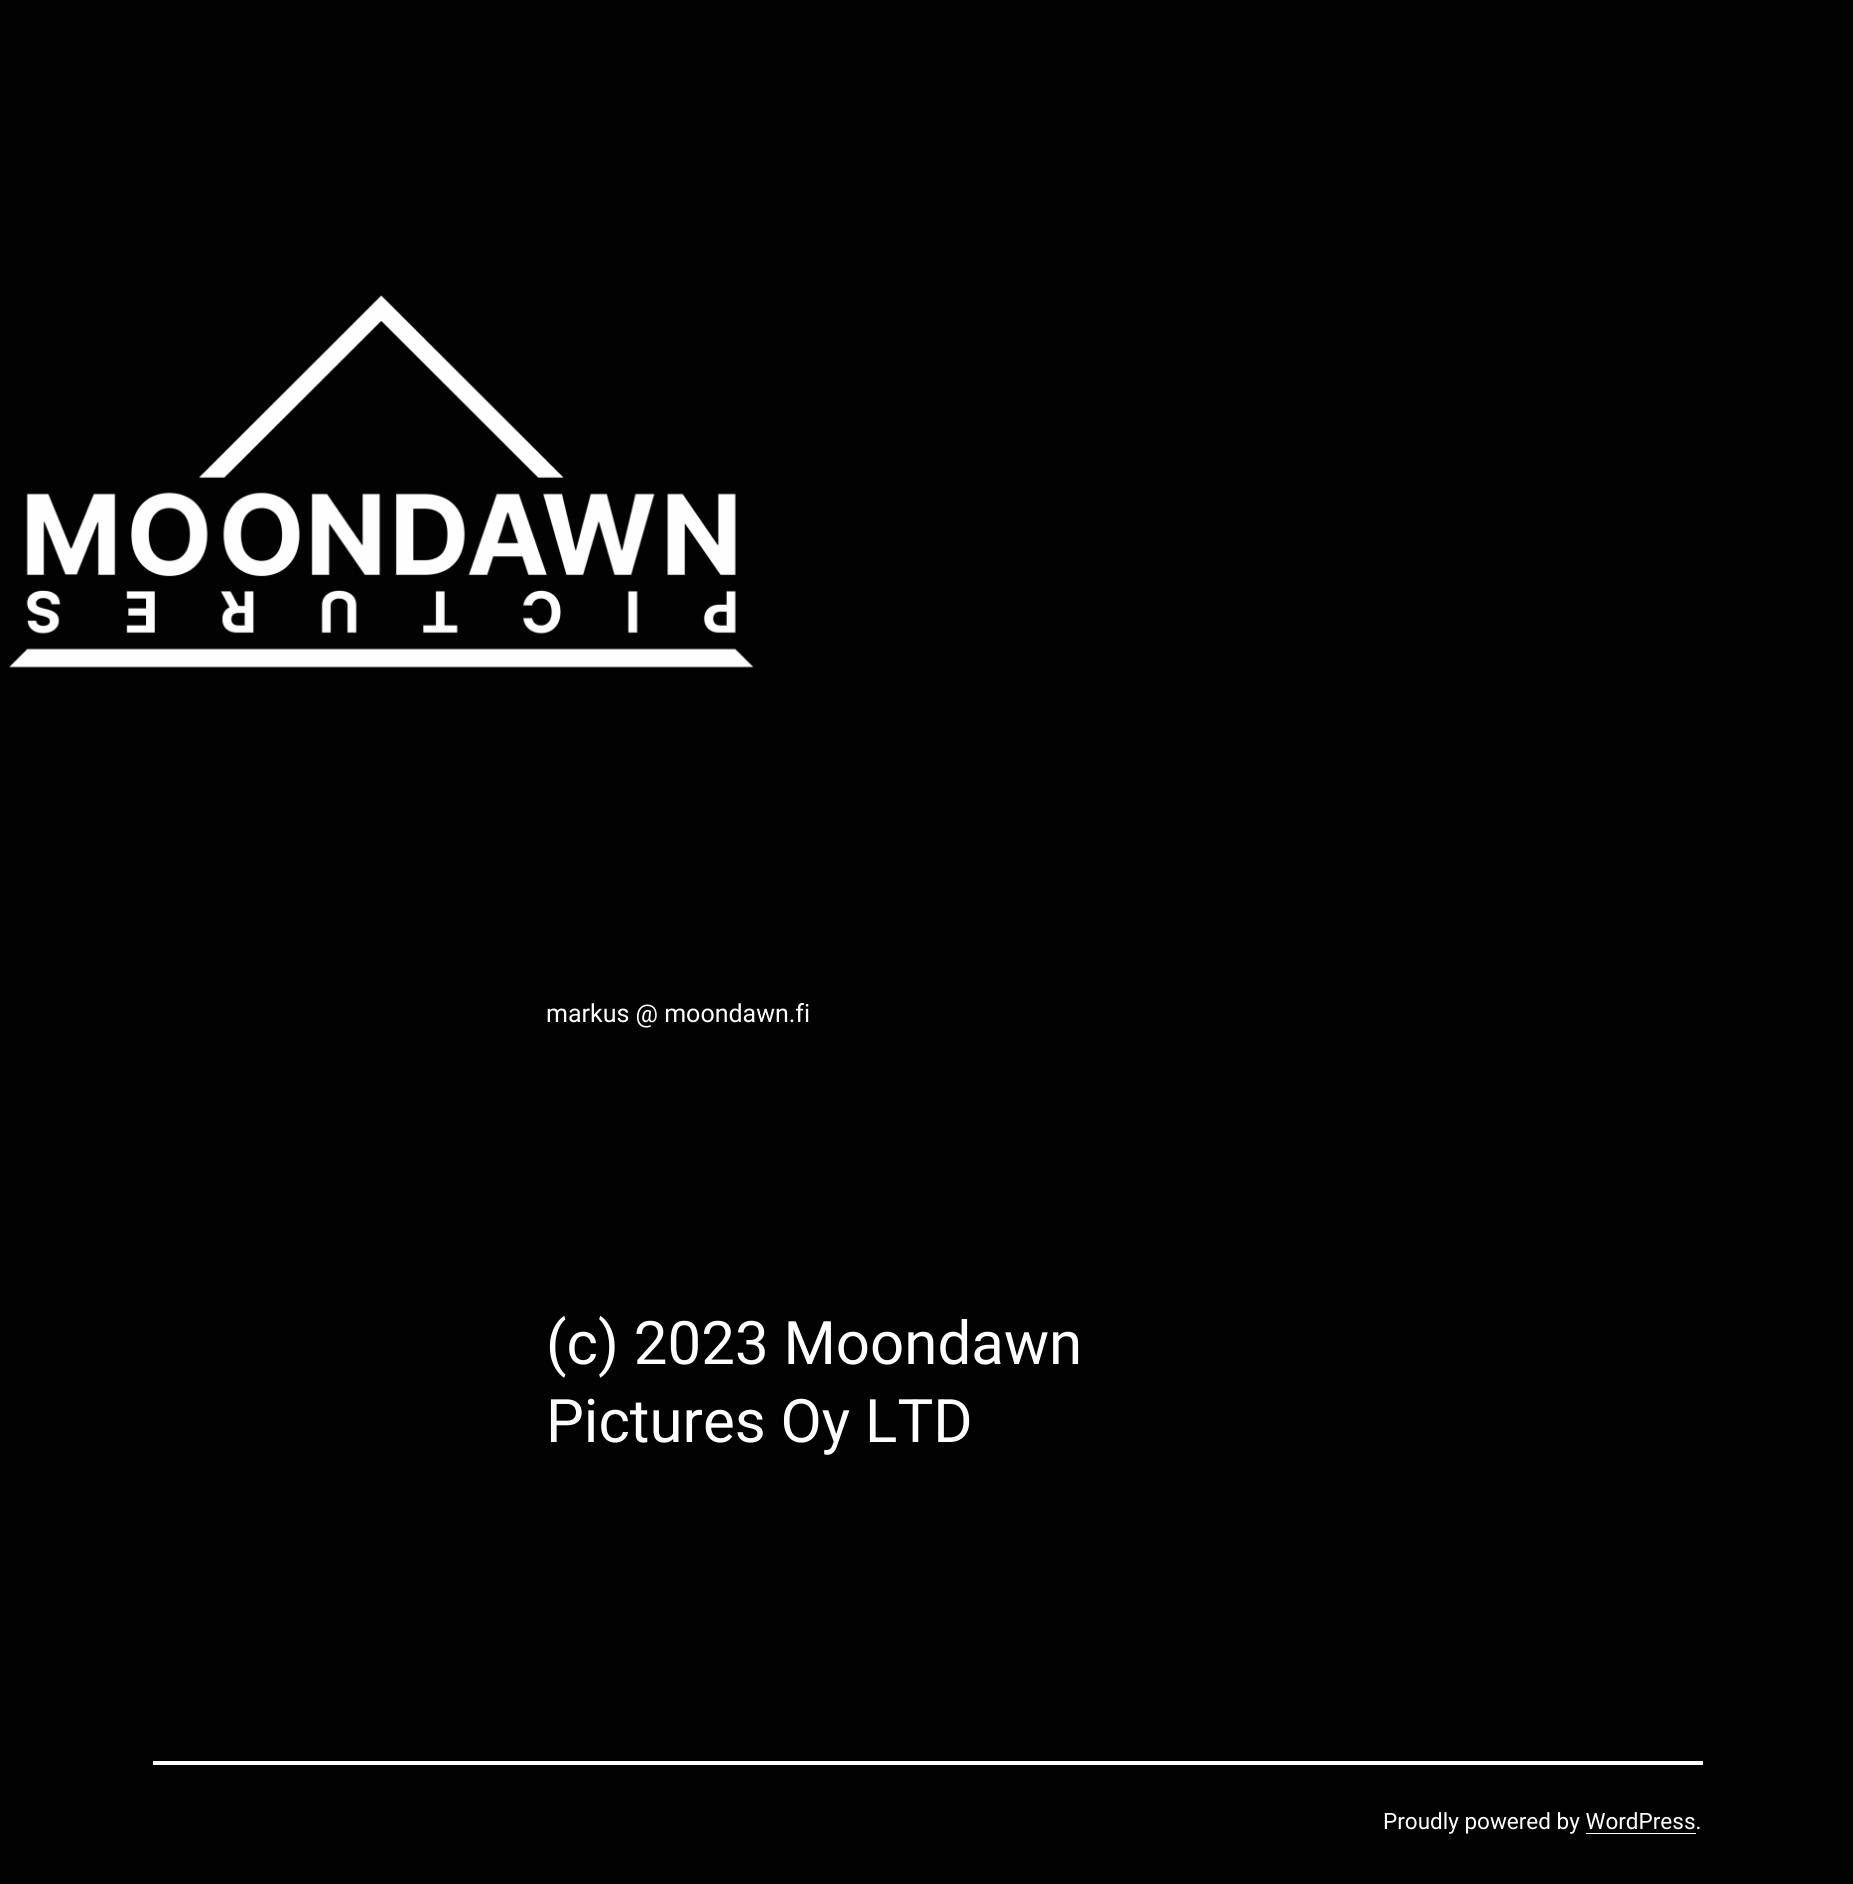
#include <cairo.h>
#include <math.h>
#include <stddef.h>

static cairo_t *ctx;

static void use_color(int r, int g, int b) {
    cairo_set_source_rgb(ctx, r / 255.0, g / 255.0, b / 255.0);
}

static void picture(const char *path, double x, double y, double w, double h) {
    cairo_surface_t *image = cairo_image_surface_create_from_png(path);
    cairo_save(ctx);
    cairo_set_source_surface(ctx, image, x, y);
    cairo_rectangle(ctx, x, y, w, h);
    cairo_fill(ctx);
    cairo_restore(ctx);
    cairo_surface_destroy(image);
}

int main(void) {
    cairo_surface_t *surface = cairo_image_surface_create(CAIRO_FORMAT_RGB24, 1853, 1884);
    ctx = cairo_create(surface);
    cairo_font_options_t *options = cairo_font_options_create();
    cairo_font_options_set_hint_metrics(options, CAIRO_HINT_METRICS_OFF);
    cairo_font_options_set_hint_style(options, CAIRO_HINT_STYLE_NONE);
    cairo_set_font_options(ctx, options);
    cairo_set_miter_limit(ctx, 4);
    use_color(2, 2, 2);
    cairo_paint(ctx);
    picture("img1.png", 9, 295, 745, 373);
    cairo_select_font_face(ctx, "Roboto", CAIRO_FONT_SLANT_NORMAL, CAIRO_FONT_WEIGHT_NORMAL);
    cairo_set_font_size(ctx, 25);
    use_color(255, 255, 255);
    cairo_move_to(ctx, 546, 1022);
    cairo_show_text(ctx, "markus @ moondawn.fi");
    cairo_set_font_size(ctx, 60);
    cairo_move_to(ctx, 546, 1364);
    cairo_show_text(ctx, "(c) 2023 Moondawn");
    cairo_move_to(ctx, 546, 1442);
    cairo_show_text(ctx, "Pictures Oy LTD");
    cairo_rectangle(ctx, 153, 1761, 1550, 4);
    cairo_fill(ctx);
    cairo_set_font_size(ctx, 22.5);
    cairo_move_to(ctx, 1383, 1829);
    cairo_show_text(ctx, "Proudly powered by WordPress.");
    cairo_rectangle(ctx, 1586, 1833, 110, 1);
    cairo_fill(ctx);
    cairo_surface_write_to_png(surface, "result.png");
    cairo_font_options_destroy(options);
    cairo_destroy(ctx);
    cairo_surface_destroy(surface);
    return 0;
}
